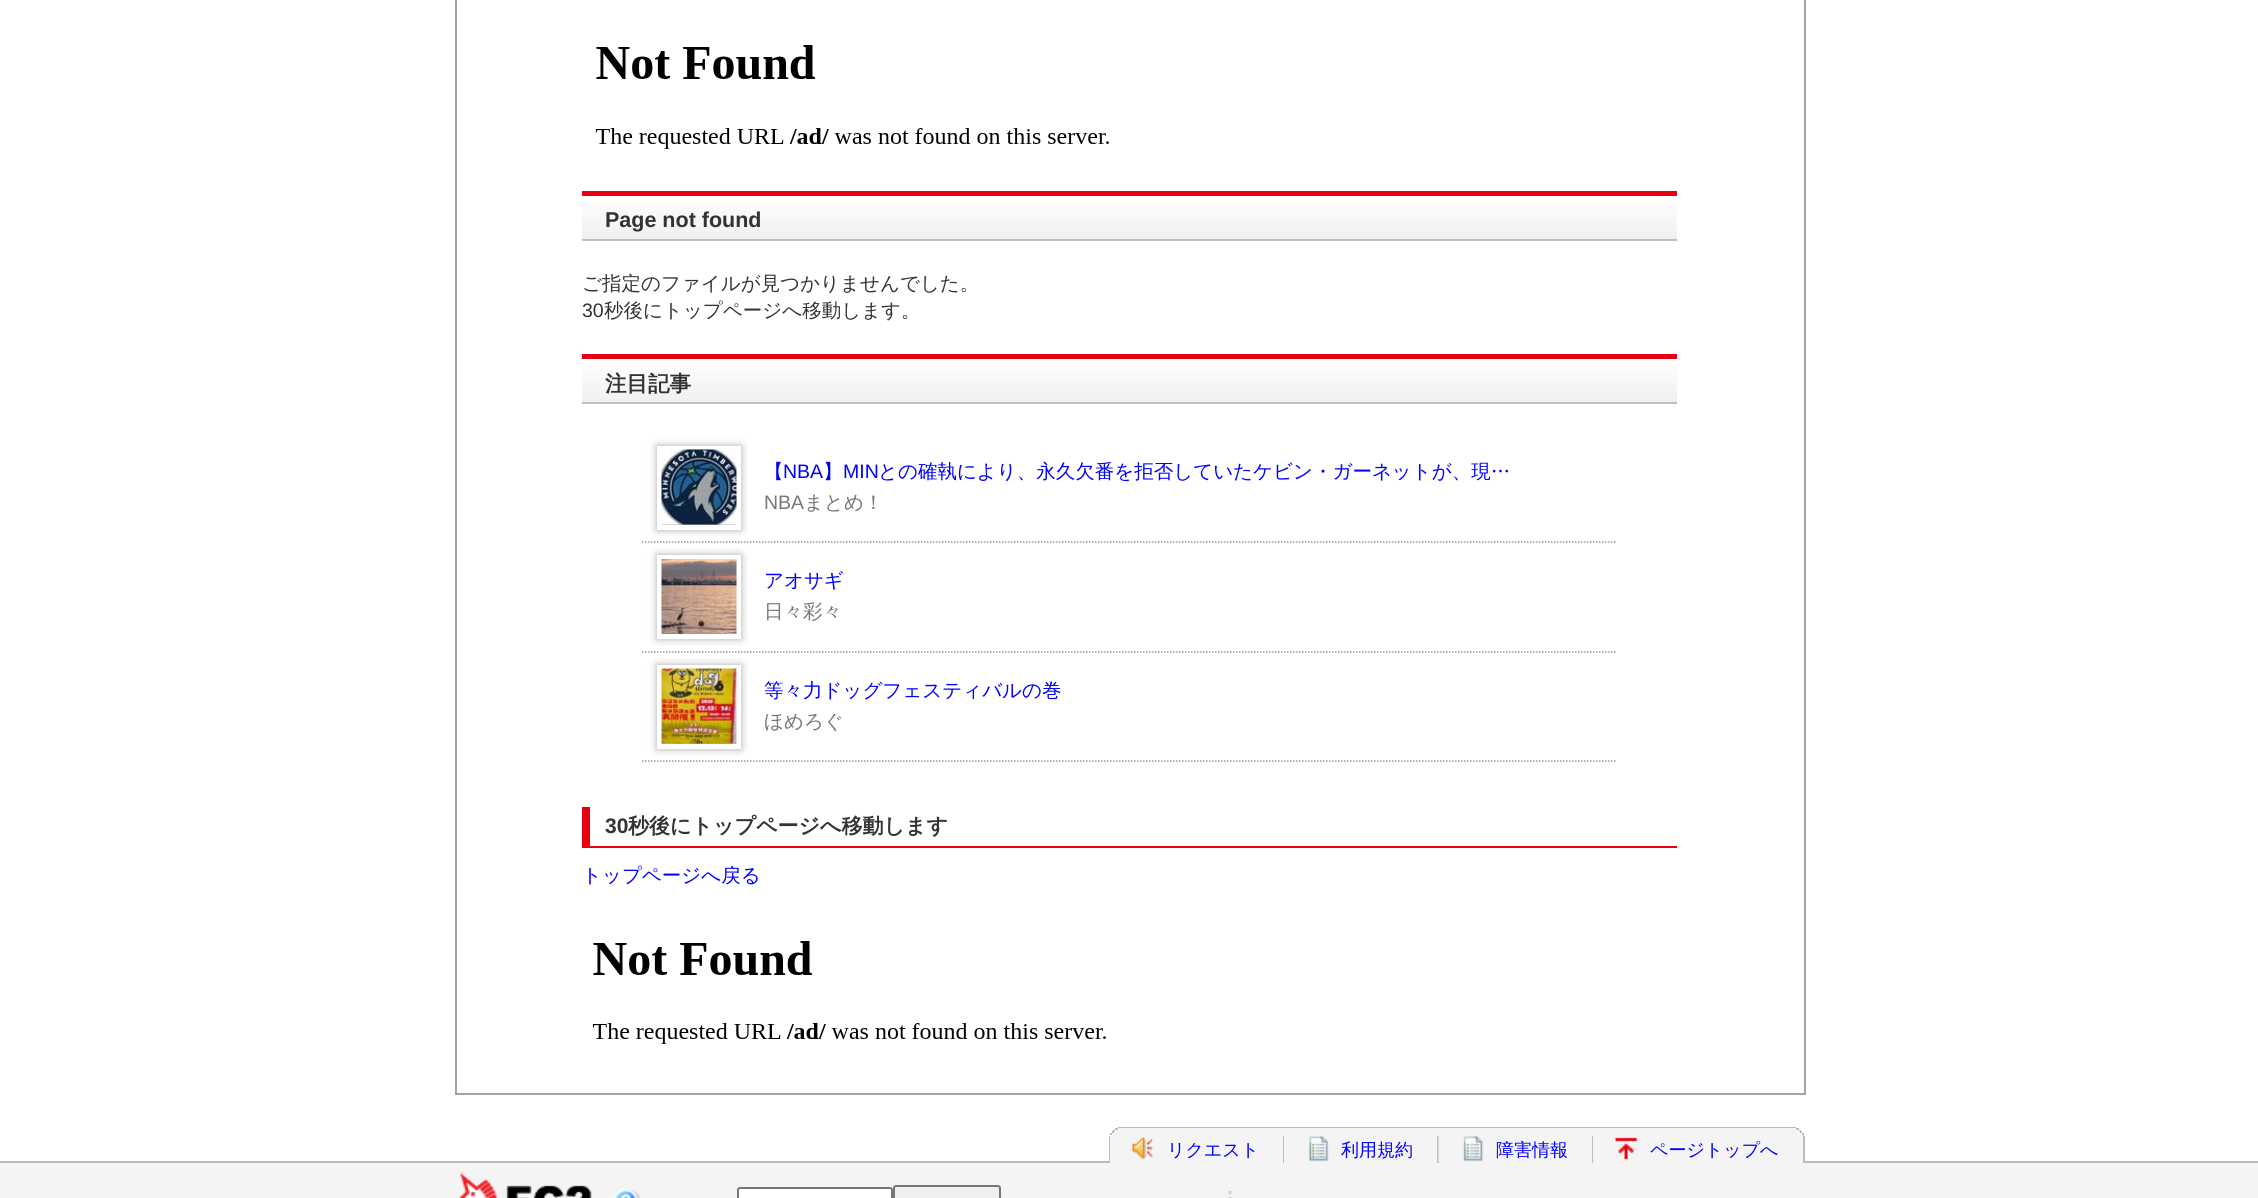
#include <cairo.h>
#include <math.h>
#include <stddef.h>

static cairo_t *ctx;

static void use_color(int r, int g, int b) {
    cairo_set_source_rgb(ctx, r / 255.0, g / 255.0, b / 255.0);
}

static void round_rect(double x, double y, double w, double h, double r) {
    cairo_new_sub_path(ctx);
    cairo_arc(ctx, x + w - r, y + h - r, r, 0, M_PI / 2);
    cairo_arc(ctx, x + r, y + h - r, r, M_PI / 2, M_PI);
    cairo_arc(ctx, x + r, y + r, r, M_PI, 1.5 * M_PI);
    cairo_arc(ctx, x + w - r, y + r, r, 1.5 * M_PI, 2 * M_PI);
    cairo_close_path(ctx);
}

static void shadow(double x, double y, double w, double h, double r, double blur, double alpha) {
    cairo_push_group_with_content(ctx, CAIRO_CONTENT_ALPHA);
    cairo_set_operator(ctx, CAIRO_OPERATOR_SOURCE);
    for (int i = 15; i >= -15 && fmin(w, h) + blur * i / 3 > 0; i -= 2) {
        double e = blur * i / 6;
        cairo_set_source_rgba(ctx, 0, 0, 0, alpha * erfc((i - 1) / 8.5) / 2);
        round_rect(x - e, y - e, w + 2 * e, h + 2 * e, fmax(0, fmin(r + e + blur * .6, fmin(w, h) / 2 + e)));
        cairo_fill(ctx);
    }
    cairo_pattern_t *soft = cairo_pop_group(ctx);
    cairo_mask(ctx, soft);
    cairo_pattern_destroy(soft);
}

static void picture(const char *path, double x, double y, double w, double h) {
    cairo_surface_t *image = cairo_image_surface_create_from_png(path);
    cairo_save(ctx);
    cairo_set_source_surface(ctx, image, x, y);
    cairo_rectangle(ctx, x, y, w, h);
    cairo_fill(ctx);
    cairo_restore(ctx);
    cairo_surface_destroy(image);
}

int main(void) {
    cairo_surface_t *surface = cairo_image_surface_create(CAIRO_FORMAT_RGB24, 2258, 1198);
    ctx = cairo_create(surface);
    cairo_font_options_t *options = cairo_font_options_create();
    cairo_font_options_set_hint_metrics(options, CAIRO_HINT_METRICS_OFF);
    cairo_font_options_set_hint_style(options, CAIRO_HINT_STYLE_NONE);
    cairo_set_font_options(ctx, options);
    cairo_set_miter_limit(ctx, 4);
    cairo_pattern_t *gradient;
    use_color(255, 255, 255);
    cairo_paint(ctx);
    cairo_rectangle(ctx, 456, -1, 1349, 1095);
    use_color(163, 163, 163);
    cairo_stroke(ctx);
    picture("img1.png", 595, 45, 514, 104);
    gradient = cairo_pattern_create_linear(582, 195, 582, 239);
    cairo_pattern_add_color_stop_rgba(gradient, 0, 1, 1, 1, 1);
    cairo_pattern_add_color_stop_rgba(gradient, 1, 0.941, 0.941, 0.941, 1);
    cairo_set_source(ctx, gradient);
    cairo_pattern_destroy(gradient);
    cairo_rectangle(ctx, 582, 202, 1095, 37);
    cairo_fill(ctx);
    use_color(232, 0, 17);
    cairo_rectangle(ctx, 582, 191, 1095, 5);
    cairo_fill(ctx);
    use_color(191, 191, 191);
    cairo_rectangle(ctx, 582, 239, 1095, 2);
    cairo_fill(ctx);
    cairo_select_font_face(ctx, "Liberation Sans", CAIRO_FONT_SLANT_NORMAL, CAIRO_FONT_WEIGHT_BOLD);
    cairo_set_font_size(ctx, 21.5);
    use_color(51, 51, 51);
    cairo_move_to(ctx, 605, 227);
    cairo_show_text(ctx, "Page not found");
    cairo_select_font_face(ctx, "WenQuanYi Zen Hei Medium", CAIRO_FONT_SLANT_NORMAL, CAIRO_FONT_WEIGHT_NORMAL);
    cairo_set_font_size(ctx, 19.5);
    cairo_move_to(ctx, 582, 290);
    cairo_show_text(ctx, "ご指定のファイルが見つかりませんでした。");
    cairo_select_font_face(ctx, "Liberation Sans", CAIRO_FONT_SLANT_NORMAL, CAIRO_FONT_WEIGHT_NORMAL);
    cairo_move_to(ctx, 582, 317);
    cairo_show_text(ctx, "30");
    cairo_select_font_face(ctx, "WenQuanYi Zen Hei Medium", CAIRO_FONT_SLANT_NORMAL, CAIRO_FONT_WEIGHT_NORMAL);
    cairo_move_to(ctx, 604, 317);
    cairo_show_text(ctx, "秒後にトップページへ移動します。");
    gradient = cairo_pattern_create_linear(582, 359, 582, 402);
    cairo_pattern_add_color_stop_rgba(gradient, 0, 1, 1, 1, 1);
    cairo_pattern_add_color_stop_rgba(gradient, 1, 0.941, 0.941, 0.941, 1);
    cairo_set_source(ctx, gradient);
    cairo_pattern_destroy(gradient);
    cairo_rectangle(ctx, 582, 366, 1095, 36);
    cairo_fill(ctx);
    use_color(232, 0, 17);
    cairo_rectangle(ctx, 582, 354, 1095, 5);
    cairo_fill(ctx);
    use_color(191, 191, 191);
    cairo_rectangle(ctx, 582, 402, 1095, 2);
    cairo_fill(ctx);
    cairo_select_font_face(ctx, "WenQuanYi Zen Hei", CAIRO_FONT_SLANT_NORMAL, CAIRO_FONT_WEIGHT_BOLD);
    cairo_set_font_size(ctx, 21.5);
    use_color(51, 51, 51);
    cairo_move_to(ctx, 605, 391);
    cairo_show_text(ctx, "注目記事");
    cairo_new_path(ctx);
    cairo_move_to(ctx, 642, 542);
    cairo_line_to(ctx, 1617, 542);
    use_color(153, 153, 153);
    cairo_set_line_width(ctx, 1.5);
    cairo_set_dash(ctx, (double[]){1.5, 1.5}, 2, 0);
    cairo_stroke(ctx);
    use_color(170, 170, 170);
    shadow(657, 446, 84, 84, 0, 4, 1);
    cairo_rectangle(ctx, 659.5, 448.5, 79, 79);
    use_color(255, 255, 255);
    cairo_set_line_width(ctx, 5);
    cairo_set_dash(ctx, NULL, 0, 0);
    cairo_stroke(ctx);
    picture("img2.png", 661, 449, 76, 76);
    cairo_select_font_face(ctx, "WenQuanYi Zen Hei Medium", CAIRO_FONT_SLANT_NORMAL, CAIRO_FONT_WEIGHT_NORMAL);
    cairo_set_font_size(ctx, 19.5);
    use_color(0, 0, 255);
    cairo_move_to(ctx, 764, 478);
    cairo_show_text(ctx, "【");
    cairo_select_font_face(ctx, "Liberation Sans", CAIRO_FONT_SLANT_NORMAL, CAIRO_FONT_WEIGHT_NORMAL);
    cairo_move_to(ctx, 783, 478);
    cairo_show_text(ctx, "NBA");
    cairo_select_font_face(ctx, "WenQuanYi Zen Hei Medium", CAIRO_FONT_SLANT_NORMAL, CAIRO_FONT_WEIGHT_NORMAL);
    cairo_move_to(ctx, 823, 478);
    cairo_show_text(ctx, "】");
    cairo_select_font_face(ctx, "Liberation Sans", CAIRO_FONT_SLANT_NORMAL, CAIRO_FONT_WEIGHT_NORMAL);
    cairo_move_to(ctx, 843, 478);
    cairo_show_text(ctx, "MIN");
    cairo_select_font_face(ctx, "WenQuanYi Zen Hei Medium", CAIRO_FONT_SLANT_NORMAL, CAIRO_FONT_WEIGHT_NORMAL);
    cairo_move_to(ctx, 878, 478);
    cairo_show_text(ctx, "との確執により、永久欠番を拒否していたケビン・ガーネットが、現…");
    cairo_select_font_face(ctx, "Liberation Sans", CAIRO_FONT_SLANT_NORMAL, CAIRO_FONT_WEIGHT_NORMAL);
    use_color(119, 119, 119);
    cairo_move_to(ctx, 764, 509);
    cairo_show_text(ctx, "NBA");
    cairo_select_font_face(ctx, "WenQuanYi Zen Hei Medium", CAIRO_FONT_SLANT_NORMAL, CAIRO_FONT_WEIGHT_NORMAL);
    cairo_move_to(ctx, 804, 509);
    cairo_show_text(ctx, "まとめ！");
    cairo_new_path(ctx);
    cairo_move_to(ctx, 642, 652);
    cairo_line_to(ctx, 1617, 652);
    use_color(153, 153, 153);
    cairo_set_line_width(ctx, 1.5);
    cairo_set_dash(ctx, (double[]){1.5, 1.5}, 2, 0);
    cairo_stroke(ctx);
    cairo_save(ctx);
    cairo_set_fill_rule(ctx, CAIRO_FILL_RULE_EVEN_ODD);
    cairo_new_path(ctx);
    cairo_move_to(ctx, 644, 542);
    cairo_line_to(ctx, 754, 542);
    cairo_line_to(ctx, 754, 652);
    cairo_line_to(ctx, 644, 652);
    cairo_close_path(ctx);
    cairo_move_to(ctx, 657, 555);
    cairo_line_to(ctx, 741, 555);
    cairo_line_to(ctx, 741, 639);
    cairo_line_to(ctx, 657, 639);
    cairo_close_path(ctx);
    cairo_clip(ctx);
    use_color(170, 170, 170);
    shadow(657, 555, 84, 84, 0, 4, 1);
    cairo_restore(ctx);
    picture("img3.png", 661, 559, 76, 75);
    use_color(0, 0, 255);
    cairo_move_to(ctx, 764, 587);
    cairo_show_text(ctx, "アオサギ");
    use_color(119, 119, 119);
    cairo_move_to(ctx, 764, 618);
    cairo_show_text(ctx, "日々彩々");
    cairo_new_path(ctx);
    cairo_move_to(ctx, 642, 761);
    cairo_line_to(ctx, 1617, 761);
    use_color(153, 153, 153);
    cairo_stroke(ctx);
    use_color(170, 170, 170);
    shadow(657, 665, 84, 84, 0, 4, 1);
    cairo_rectangle(ctx, 659.5, 667.5, 79, 79);
    use_color(255, 255, 255);
    cairo_set_line_width(ctx, 5);
    cairo_set_dash(ctx, NULL, 0, 0);
    cairo_stroke(ctx);
    picture("img4.png", 661, 668, 76, 76);
    use_color(0, 0, 255);
    cairo_move_to(ctx, 764, 697);
    cairo_show_text(ctx, "等々力ドッグフェスティバルの巻");
    use_color(119, 119, 119);
    cairo_move_to(ctx, 764, 728);
    cairo_show_text(ctx, "ほめろぐ");
    use_color(232, 0, 17);
    cairo_rectangle(ctx, 582, 846, 1095, 2);
    cairo_fill(ctx);
    cairo_rectangle(ctx, 582, 807, 8, 41);
    cairo_fill(ctx);
    cairo_select_font_face(ctx, "Liberation Sans", CAIRO_FONT_SLANT_NORMAL, CAIRO_FONT_WEIGHT_BOLD);
    cairo_set_font_size(ctx, 21);
    use_color(51, 51, 51);
    cairo_move_to(ctx, 605, 833);
    cairo_show_text(ctx, "30");
    cairo_select_font_face(ctx, "WenQuanYi Zen Hei", CAIRO_FONT_SLANT_NORMAL, CAIRO_FONT_WEIGHT_BOLD);
    cairo_move_to(ctx, 628, 833);
    cairo_show_text(ctx, "秒後にトップページへ移動します");
    cairo_select_font_face(ctx, "WenQuanYi Zen Hei Medium", CAIRO_FONT_SLANT_NORMAL, CAIRO_FONT_WEIGHT_NORMAL);
    cairo_set_font_size(ctx, 19.5);
    use_color(0, 0, 255);
    cairo_move_to(ctx, 582, 882);
    cairo_show_text(ctx, "トップページへ戻る");
    picture("img5.png", 592, 941, 514, 103);
    use_color(188, 188, 188);
    cairo_rectangle(ctx, 1118, 1127, 678, 1);
    cairo_fill(ctx);
    use_color(244, 244, 244);
    cairo_rectangle(ctx, 1115, 1128, 684, 2);
    cairo_fill(ctx);
    use_color(188, 188, 188);
    cairo_rectangle(ctx, 1796, 1128, 3, 2);
    cairo_fill(ctx);
    cairo_rectangle(ctx, 1115, 1128, 3, 2);
    cairo_fill(ctx);
    use_color(244, 244, 244);
    cairo_rectangle(ctx, 1113, 1130, 687, 1);
    cairo_fill(ctx);
    use_color(188, 188, 188);
    cairo_rectangle(ctx, 1799, 1130, 2, 1);
    cairo_fill(ctx);
    cairo_rectangle(ctx, 1113, 1130, 2, 1);
    cairo_fill(ctx);
    use_color(244, 244, 244);
    cairo_rectangle(ctx, 1112, 1131, 690, 2);
    cairo_fill(ctx);
    use_color(188, 188, 188);
    cairo_rectangle(ctx, 1800, 1131, 2, 2);
    cairo_fill(ctx);
    cairo_rectangle(ctx, 1112, 1131, 2, 2);
    cairo_fill(ctx);
    use_color(244, 244, 244);
    cairo_rectangle(ctx, 1110, 1133, 693, 3);
    cairo_fill(ctx);
    use_color(188, 188, 188);
    cairo_rectangle(ctx, 1802, 1133, 2, 3);
    cairo_fill(ctx);
    cairo_rectangle(ctx, 1110, 1133, 2, 3);
    cairo_fill(ctx);
    cairo_rectangle(ctx, 0, 1161, 2258, 2);
    cairo_fill(ctx);
    use_color(244, 244, 244);
    cairo_rectangle(ctx, 1439, 1136, 153, 27);
    cairo_fill(ctx);
    use_color(188, 188, 188);
    cairo_rectangle(ctx, 1803, 1136, 2, 27);
    cairo_fill(ctx);
    cairo_rectangle(ctx, 1109, 1136, 1, 27);
    cairo_fill(ctx);
    use_color(244, 244, 244);
    cairo_rectangle(ctx, 1110, 1136, 173, 27);
    cairo_fill(ctx);
    picture("img6.png", 1110, 1135, 44, 25);
    use_color(191, 191, 191);
    cairo_rectangle(ctx, 1283, 1136, 1, 27);
    cairo_fill(ctx);
    cairo_set_font_size(ctx, 18);
    use_color(0, 0, 255);
    cairo_move_to(ctx, 1167, 1156);
    cairo_show_text(ctx, "リクエスト");
    use_color(244, 244, 244);
    cairo_rectangle(ctx, 1284, 1136, 153, 27);
    cairo_fill(ctx);
    picture("img7.png", 1308, 1136, 22, 26);
    use_color(191, 191, 191);
    cairo_rectangle(ctx, 1437, 1136, 2, 27);
    cairo_fill(ctx);
    use_color(0, 0, 255);
    cairo_move_to(ctx, 1341, 1156);
    cairo_show_text(ctx, "利用規約");
    picture("img8.png", 1438, 1136, 46, 26);
    use_color(191, 191, 191);
    cairo_rectangle(ctx, 1592, 1136, 1, 27);
    cairo_fill(ctx);
    use_color(0, 0, 255);
    cairo_move_to(ctx, 1496, 1156);
    cairo_show_text(ctx, "障害情報");
    use_color(244, 244, 244);
    cairo_rectangle(ctx, 1593, 1136, 210, 27);
    cairo_fill(ctx);
    picture("img9.png", 1615, 1135, 188, 25);
    use_color(0, 0, 255);
    cairo_move_to(ctx, 1650, 1156);
    cairo_show_text(ctx, "ページトップへ");
    use_color(244, 244, 244);
    cairo_rectangle(ctx, 0, 1163, 2258, 35);
    cairo_fill(ctx);
    picture("img10.png", 458, 1172, 134, 26);
    picture("img11.png", 612, 1188, 29, 10);
    use_color(255, 255, 255);
    round_rect(738, 1188, 154, 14, 2);
    cairo_fill_preserve(ctx);
    use_color(118, 118, 118);
    cairo_set_line_width(ctx, 2);
    cairo_stroke(ctx);
    use_color(239, 239, 239);
    round_rect(894, 1186, 106, 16, 2);
    cairo_fill_preserve(ctx);
    use_color(118, 118, 118);
    cairo_stroke(ctx);
    cairo_new_path(ctx);
    cairo_move_to(ctx, 1230, 1191);
    cairo_line_to(ctx, 1230, 1194);
    cairo_move_to(ctx, 1230, 1197);
    cairo_line_to(ctx, 1230, 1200);
    cairo_move_to(ctx, 1230, 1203);
    cairo_line_to(ctx, 1230, 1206);
    cairo_move_to(ctx, 1230, 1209);
    cairo_line_to(ctx, 1230, 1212);
    use_color(204, 204, 204);
    cairo_set_line_width(ctx, 3);
    cairo_stroke(ctx);
    cairo_surface_write_to_png(surface, "result.png");
    cairo_font_options_destroy(options);
    cairo_destroy(ctx);
    cairo_surface_destroy(surface);
    return 0;
}
